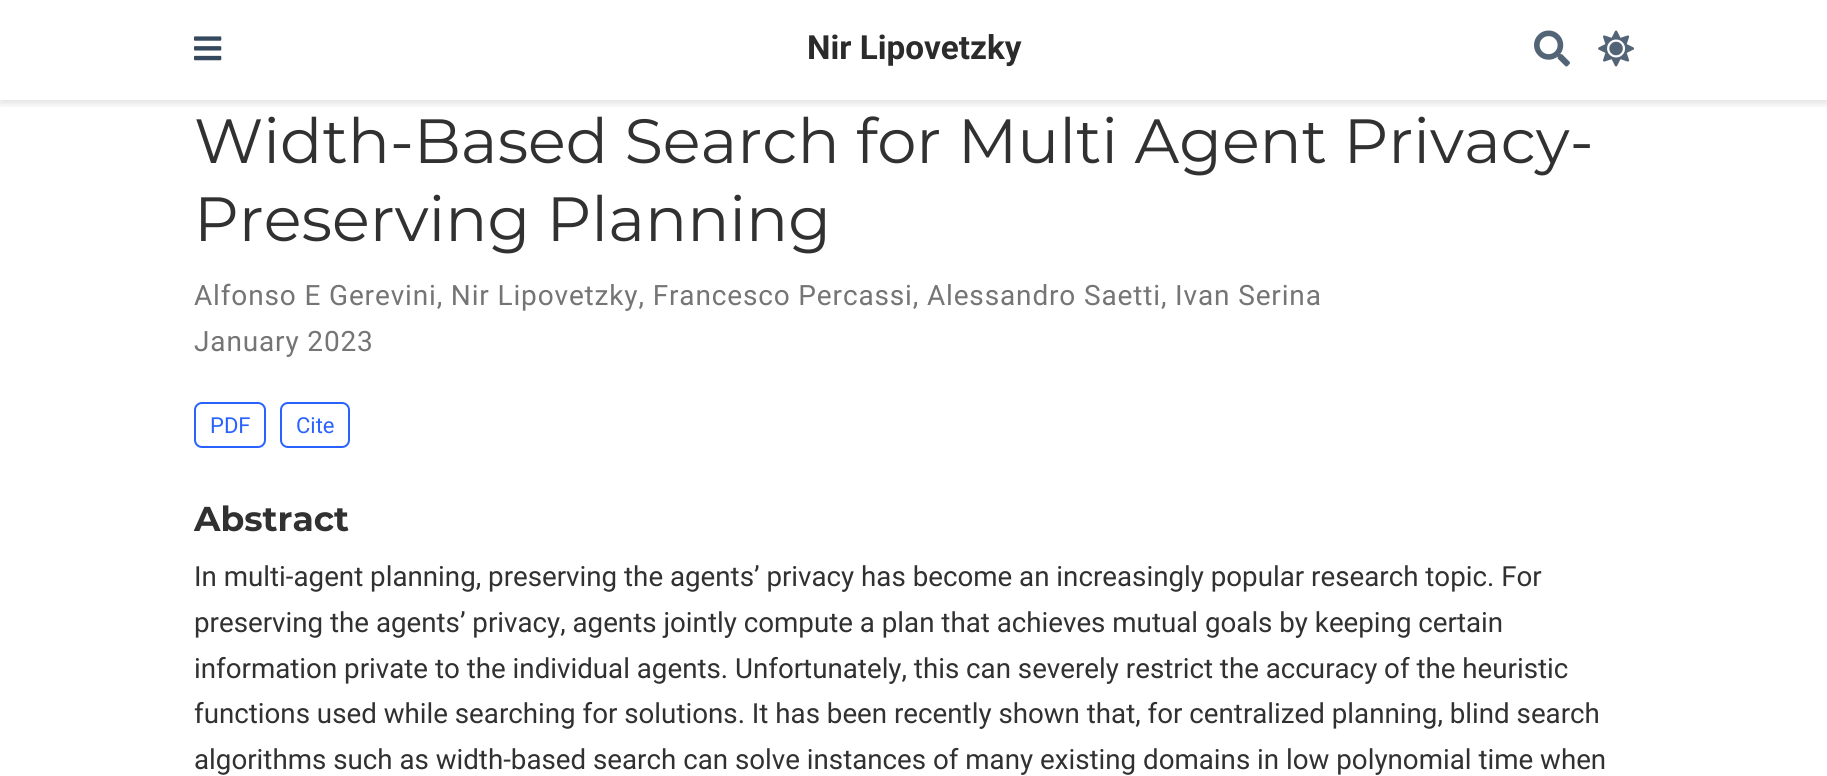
#include <cairo.h>
#include <math.h>
#include <stddef.h>

static cairo_t *ctx;

static void use_color(int r, int g, int b) {
    cairo_set_source_rgb(ctx, r / 255.0, g / 255.0, b / 255.0);
}

static void spaced_text(double x, double y, const char *s, double letter, double word) {
    cairo_move_to(ctx, x, y);
    while (*s) {
        char ch[5] = {0};
        int n = 0;
        do ch[n++] = *s++; while ((*s & 0xC0) == 0x80);
        cairo_show_text(ctx, ch);
        cairo_rel_move_to(ctx, letter + word * (*ch == ' '), 0);
    }
}

static void round_rect(double x, double y, double w, double h, double r) {
    cairo_new_sub_path(ctx);
    cairo_arc(ctx, x + w - r, y + h - r, r, 0, M_PI / 2);
    cairo_arc(ctx, x + r, y + h - r, r, M_PI / 2, M_PI);
    cairo_arc(ctx, x + r, y + r, r, M_PI, 1.5 * M_PI);
    cairo_arc(ctx, x + w - r, y + r, r, 1.5 * M_PI, 2 * M_PI);
    cairo_close_path(ctx);
}

static void shadow(double x, double y, double w, double h, double r, double blur, double alpha) {
    cairo_push_group_with_content(ctx, CAIRO_CONTENT_ALPHA);
    cairo_set_operator(ctx, CAIRO_OPERATOR_SOURCE);
    for (int i = 15; i >= -15 && fmin(w, h) + blur * i / 3 > 0; i -= 2) {
        double e = blur * i / 6;
        cairo_set_source_rgba(ctx, 0, 0, 0, alpha * erfc((i - 1) / 8.5) / 2);
        round_rect(x - e, y - e, w + 2 * e, h + 2 * e, fmax(0, fmin(r + e + blur * .6, fmin(w, h) / 2 + e)));
        cairo_fill(ctx);
    }
    cairo_pattern_t *soft = cairo_pop_group(ctx);
    cairo_mask(ctx, soft);
    cairo_pattern_destroy(soft);
}

static void picture(const char *path, double x, double y, double w, double h) {
    cairo_surface_t *image = cairo_image_surface_create_from_png(path);
    cairo_save(ctx);
    cairo_set_source_surface(ctx, image, x, y);
    cairo_rectangle(ctx, x, y, w, h);
    cairo_fill(ctx);
    cairo_restore(ctx);
    cairo_surface_destroy(image);
}

int main(void) {
    cairo_surface_t *surface = cairo_image_surface_create(CAIRO_FORMAT_RGB24, 1827, 776);
    ctx = cairo_create(surface);
    cairo_font_options_t *options = cairo_font_options_create();
    cairo_font_options_set_hint_metrics(options, CAIRO_HINT_METRICS_OFF);
    cairo_font_options_set_hint_style(options, CAIRO_HINT_STYLE_NONE);
    cairo_set_font_options(ctx, options);
    cairo_set_miter_limit(ctx, 4);
    use_color(255, 255, 255);
    cairo_paint(ctx);
    cairo_save(ctx);
    cairo_rectangle(ctx, 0, 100, 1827, 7);
    cairo_clip(ctx);
    use_color(0, 0, 0);
    shadow(0, 4, 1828, 100, 0, 3.5, 0.11);
    cairo_restore(ctx);
    picture("img1.png", 194, 36, 28, 25);
    cairo_select_font_face(ctx, "Roboto", CAIRO_FONT_SLANT_NORMAL, CAIRO_FONT_WEIGHT_BOLD);
    cairo_set_font_size(ctx, 33.25);
    use_color(43, 43, 43);
    cairo_move_to(ctx, 807, 59);
    cairo_show_text(ctx, "Nir Lipovetzky");
    picture("img2.png", 1534, 30, 36, 37);
    picture("img3.png", 1598, 30, 36, 37);
    cairo_select_font_face(ctx, "Montserrat", CAIRO_FONT_SLANT_NORMAL, CAIRO_FONT_WEIGHT_NORMAL);
    cairo_set_font_size(ctx, 62.4);
    use_color(49, 49, 49);
    cairo_move_to(ctx, 194, 163);
    cairo_show_text(ctx, "Width-Based Search for Multi Agent Privacy-");
    cairo_move_to(ctx, 194, 241);
    cairo_show_text(ctx, "Preserving Planning");
    cairo_select_font_face(ctx, "Roboto", CAIRO_FONT_SLANT_NORMAL, CAIRO_FONT_WEIGHT_NORMAL);
    cairo_set_font_size(ctx, 28);
    use_color(117, 117, 117);
    spaced_text(194, 305, "Alfonso E Gerevini, Nir Lipovetzky, Francesco Percassi, Alessandro Saetti, Ivan Serina", 0.85, 0);
    spaced_text(194, 351, "January 2023", 0.85, 0);
    round_rect(195, 403, 70, 44, 7);
    use_color(41, 98, 255);
    cairo_stroke(ctx);
    cairo_set_font_size(ctx, 22);
    cairo_move_to(ctx, 210, 433);
    cairo_show_text(ctx, "PDF");
    round_rect(281, 403, 68, 44, 7);
    cairo_stroke(ctx);
    cairo_move_to(ctx, 296, 433);
    cairo_show_text(ctx, "Cite");
    cairo_select_font_face(ctx, "Montserrat", CAIRO_FONT_SLANT_NORMAL, CAIRO_FONT_WEIGHT_BOLD);
    cairo_set_font_size(ctx, 34.5);
    use_color(49, 49, 49);
    cairo_move_to(ctx, 194, 531);
    cairo_show_text(ctx, "Abstract");
    cairo_select_font_face(ctx, "Roboto", CAIRO_FONT_SLANT_NORMAL, CAIRO_FONT_WEIGHT_NORMAL);
    cairo_set_font_size(ctx, 27.72);
    cairo_move_to(ctx, 194, 586);
    cairo_show_text(ctx, "In multi-agent planning, preserving the agents’ privacy has become an increasingly popular research topic. For");
    cairo_move_to(ctx, 194, 632);
    cairo_show_text(ctx, "preserving the agents’ privacy, agents jointly compute a plan that achieves mutual goals by keeping certain");
    cairo_move_to(ctx, 194, 678);
    cairo_show_text(ctx, "information private to the individual agents. Unfortunately, this can severely restrict the accuracy of the heuristic");
    cairo_move_to(ctx, 194, 723);
    cairo_show_text(ctx, "functions used while searching for solutions. It has been recently shown that, for centralized planning, blind search");
    cairo_move_to(ctx, 194, 769);
    cairo_show_text(ctx, "algorithms such as width-based search can solve instances of many existing domains in low polynomial time when");
    cairo_surface_write_to_png(surface, "result.png");
    cairo_font_options_destroy(options);
    cairo_destroy(ctx);
    cairo_surface_destroy(surface);
    return 0;
}
